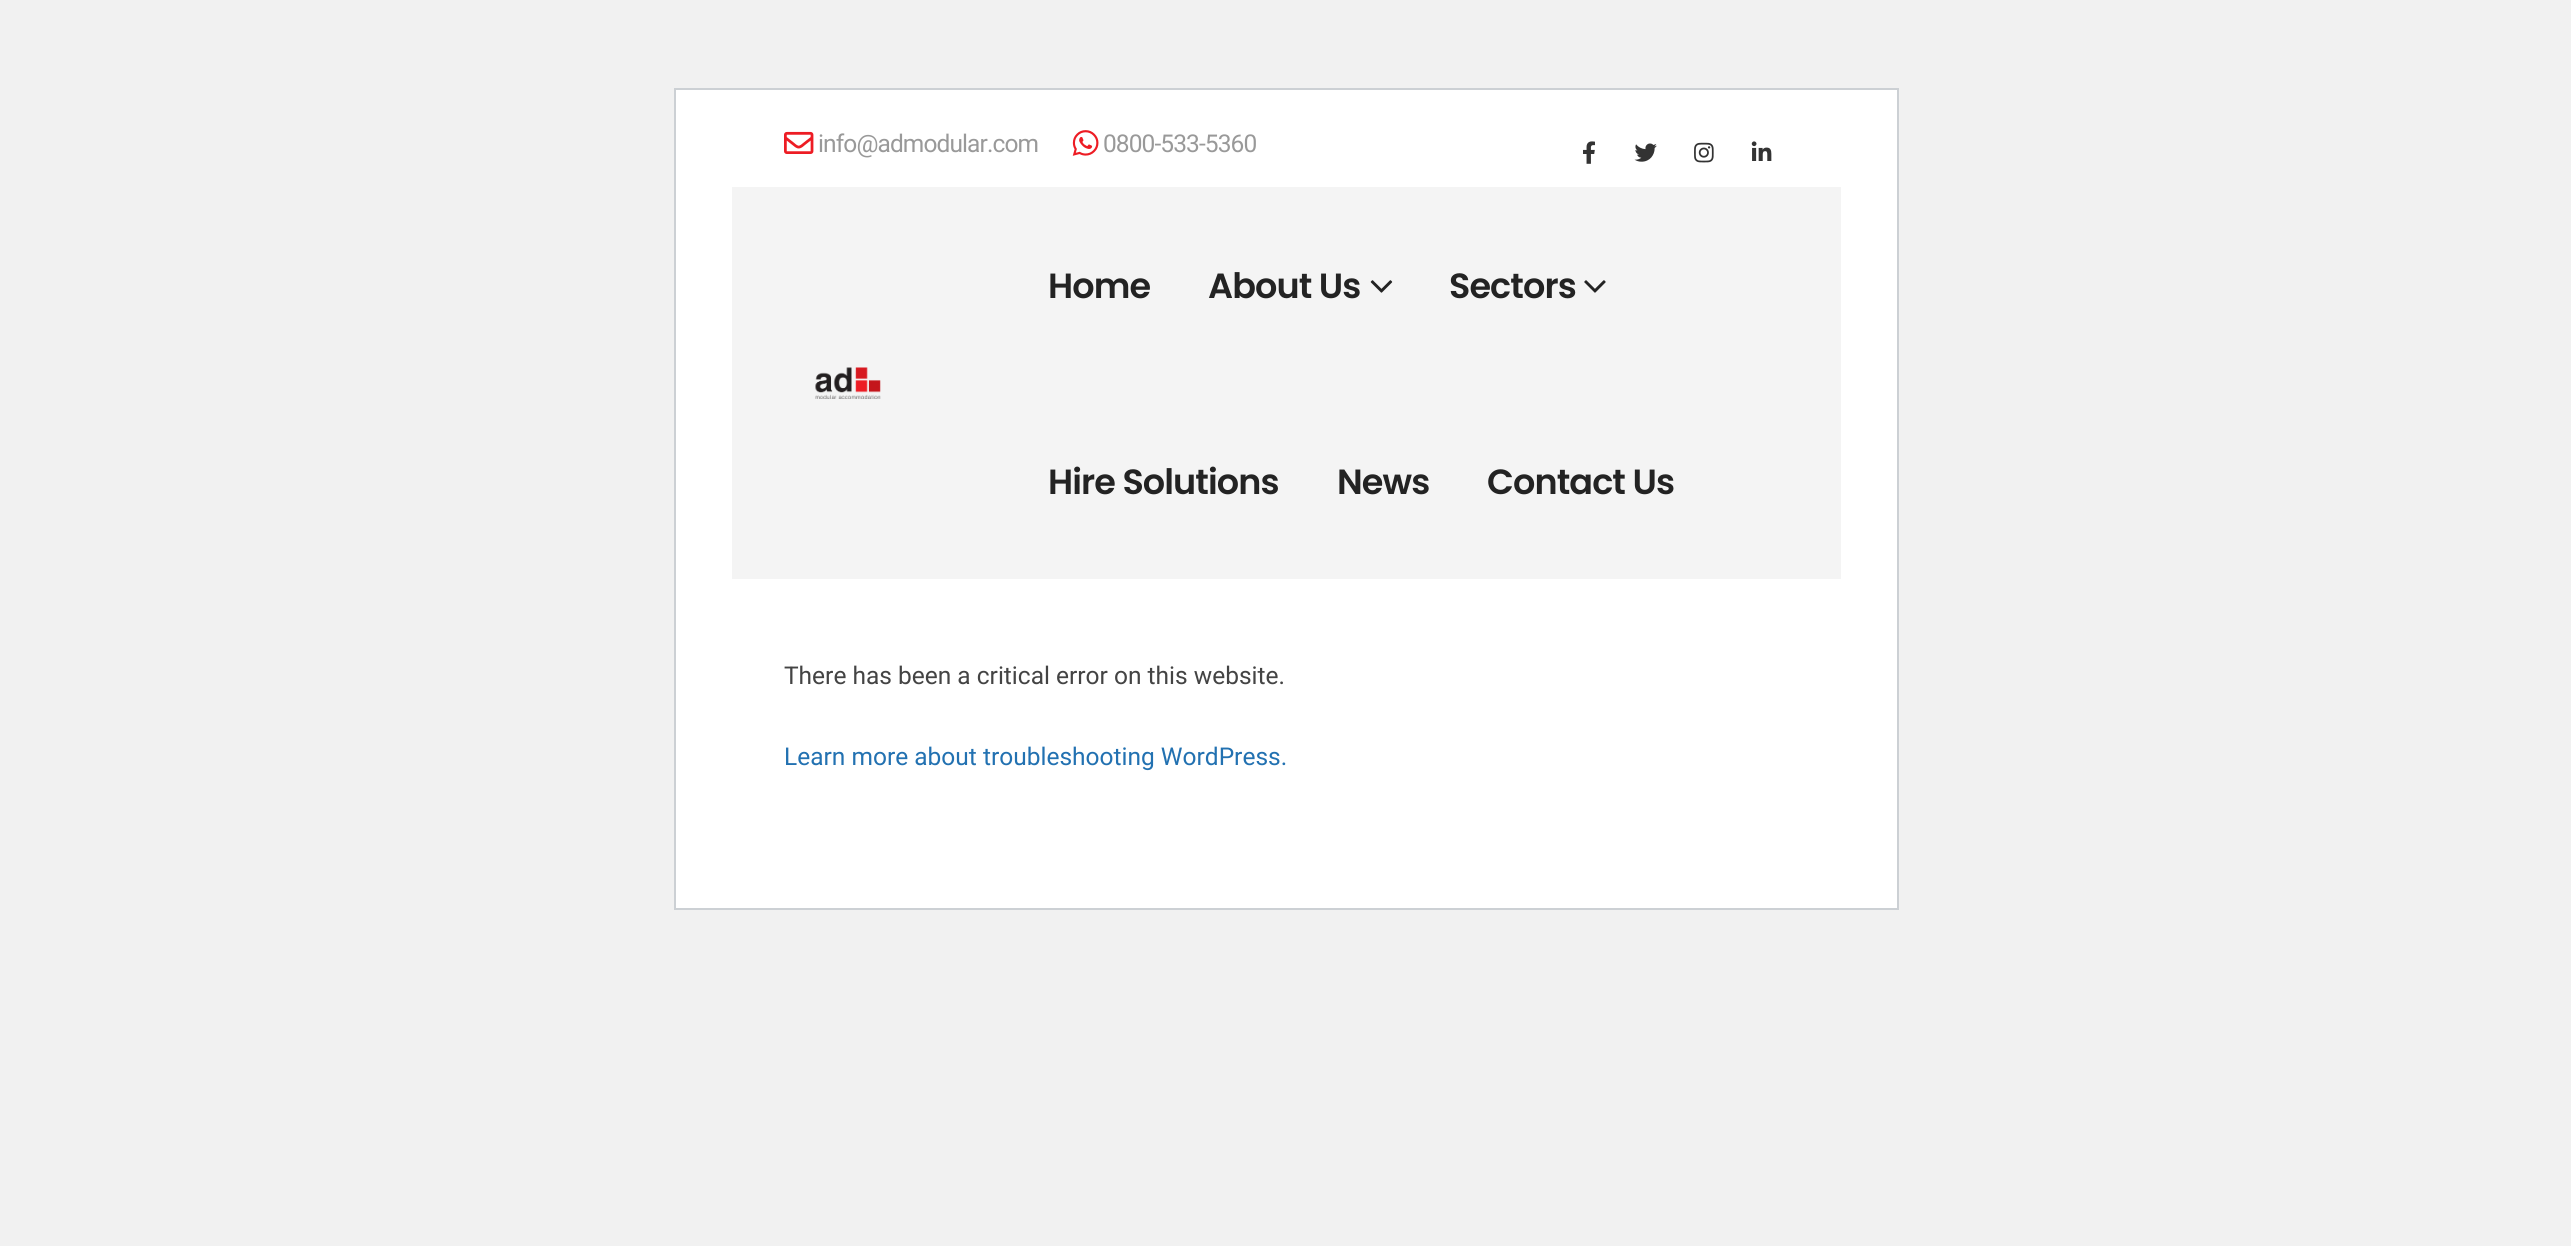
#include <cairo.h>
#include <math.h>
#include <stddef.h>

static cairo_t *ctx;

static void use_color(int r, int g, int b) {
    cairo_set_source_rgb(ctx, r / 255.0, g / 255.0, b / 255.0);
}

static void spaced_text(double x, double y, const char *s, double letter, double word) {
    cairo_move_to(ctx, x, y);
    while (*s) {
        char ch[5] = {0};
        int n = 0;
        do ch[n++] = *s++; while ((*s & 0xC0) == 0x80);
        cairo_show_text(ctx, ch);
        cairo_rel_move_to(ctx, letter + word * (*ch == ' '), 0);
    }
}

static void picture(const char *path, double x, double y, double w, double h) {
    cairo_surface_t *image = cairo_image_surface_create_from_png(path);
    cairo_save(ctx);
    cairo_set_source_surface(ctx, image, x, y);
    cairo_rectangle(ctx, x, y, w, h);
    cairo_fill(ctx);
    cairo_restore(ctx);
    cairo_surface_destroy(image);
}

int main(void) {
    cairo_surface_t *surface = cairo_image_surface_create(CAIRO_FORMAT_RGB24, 2571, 1246);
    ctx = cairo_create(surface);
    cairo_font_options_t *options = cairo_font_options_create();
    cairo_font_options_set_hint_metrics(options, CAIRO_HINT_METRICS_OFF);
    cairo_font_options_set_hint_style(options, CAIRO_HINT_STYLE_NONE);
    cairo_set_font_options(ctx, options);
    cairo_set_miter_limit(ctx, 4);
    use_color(241, 241, 241);
    cairo_paint(ctx);
    use_color(255, 255, 255);
    cairo_rectangle(ctx, 675, 89, 1223, 820);
    cairo_fill_preserve(ctx);
    use_color(204, 208, 212);
    cairo_stroke(ctx);
    picture("img1.png", 784, 131, 30, 23);
    cairo_select_font_face(ctx, "Roboto", CAIRO_FONT_SLANT_NORMAL, CAIRO_FONT_WEIGHT_NORMAL);
    cairo_set_font_size(ctx, 24.5);
    use_color(153, 153, 153);
    spaced_text(818, 152, "info@admodular.com", -0.9, 0);
    picture("img2.png", 1072, 130, 27, 26);
    spaced_text(1103, 152, "0800-533-5360", -0.9, 0);
    picture("img3.png", 1583, 141, 12, 23);
    picture("img4.png", 1634, 143, 23, 19);
    picture("img5.png", 1694, 142, 20, 21);
    picture("img6.png", 1751, 141, 21, 20);
    use_color(244, 244, 244);
    cairo_rectangle(ctx, 732, 187, 1109, 392);
    cairo_fill(ctx);
    picture("img7.png", 815, 367, 66, 32);
    cairo_select_font_face(ctx, "Poppins SemiBold", CAIRO_FONT_SLANT_NORMAL, CAIRO_FONT_WEIGHT_NORMAL);
    cairo_set_font_size(ctx, 35);
    use_color(35, 35, 35);
    spaced_text(1048, 298, "Home", -0.9, 0);
    spaced_text(1208, 298, "About Us", -0.9, 0);
    picture("img8.png", 1370, 280, 23, 13);
    spaced_text(1449, 298, "Sectors", -0.9, 0);
    picture("img9.png", 1584, 280, 22, 13);
    spaced_text(1048, 494, "Hire Solutions", -0.9, 0);
    spaced_text(1337, 494, "News", -0.9, 0);
    spaced_text(1487, 494, "Contact Us", -0.9, 0);
    cairo_select_font_face(ctx, "Roboto", CAIRO_FONT_SLANT_NORMAL, CAIRO_FONT_WEIGHT_NORMAL);
    cairo_set_font_size(ctx, 24.5);
    use_color(68, 68, 68);
    cairo_move_to(ctx, 784, 684);
    cairo_show_text(ctx, "There has been a critical error on this website.");
    use_color(34, 113, 177);
    cairo_move_to(ctx, 784, 765);
    cairo_show_text(ctx, "Learn more about troubleshooting WordPress.");
    cairo_surface_write_to_png(surface, "result.png");
    cairo_font_options_destroy(options);
    cairo_destroy(ctx);
    cairo_surface_destroy(surface);
    return 0;
}
